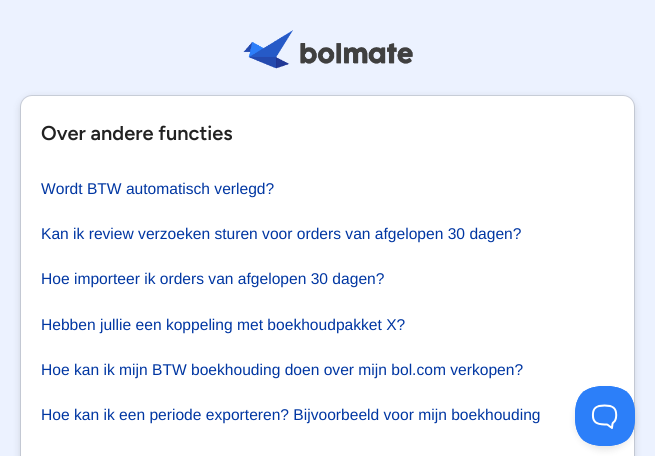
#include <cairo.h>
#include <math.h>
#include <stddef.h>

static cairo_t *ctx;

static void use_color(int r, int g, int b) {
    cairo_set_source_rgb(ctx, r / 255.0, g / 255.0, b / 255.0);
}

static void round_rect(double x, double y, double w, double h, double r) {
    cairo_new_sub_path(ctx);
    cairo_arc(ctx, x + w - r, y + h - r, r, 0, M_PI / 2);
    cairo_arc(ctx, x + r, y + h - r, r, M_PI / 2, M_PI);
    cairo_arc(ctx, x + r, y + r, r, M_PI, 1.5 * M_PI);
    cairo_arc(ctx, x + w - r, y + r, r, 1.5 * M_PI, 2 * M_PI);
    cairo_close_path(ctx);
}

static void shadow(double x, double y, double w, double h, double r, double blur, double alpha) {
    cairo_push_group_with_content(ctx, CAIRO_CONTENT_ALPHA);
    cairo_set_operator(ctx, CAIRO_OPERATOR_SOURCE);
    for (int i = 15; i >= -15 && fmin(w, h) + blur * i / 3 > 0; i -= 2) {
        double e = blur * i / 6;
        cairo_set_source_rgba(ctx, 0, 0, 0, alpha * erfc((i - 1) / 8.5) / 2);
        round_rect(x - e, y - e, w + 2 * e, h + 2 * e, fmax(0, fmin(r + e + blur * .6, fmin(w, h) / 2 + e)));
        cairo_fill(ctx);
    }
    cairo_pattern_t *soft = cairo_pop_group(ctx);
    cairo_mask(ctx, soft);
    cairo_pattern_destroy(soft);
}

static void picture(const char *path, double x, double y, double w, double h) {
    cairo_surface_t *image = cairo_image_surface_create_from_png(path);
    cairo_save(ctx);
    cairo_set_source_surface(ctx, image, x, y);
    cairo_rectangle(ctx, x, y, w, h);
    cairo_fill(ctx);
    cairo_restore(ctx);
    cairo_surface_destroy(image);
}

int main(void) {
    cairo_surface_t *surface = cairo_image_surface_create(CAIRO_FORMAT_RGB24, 655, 456);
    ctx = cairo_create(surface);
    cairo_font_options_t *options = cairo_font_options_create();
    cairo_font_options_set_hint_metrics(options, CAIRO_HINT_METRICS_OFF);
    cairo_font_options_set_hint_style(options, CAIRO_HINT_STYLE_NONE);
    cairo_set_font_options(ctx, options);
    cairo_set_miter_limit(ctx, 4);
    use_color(236, 242, 255);
    cairo_paint(ctx);
    picture("img1.png", 243, 30, 170, 39);
    use_color(0, 0, 0);
    shadow(20, 97, 615, 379, 12, 4, 0.12);
    use_color(255, 255, 255);
    round_rect(21, 96, 613, 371, 11);
    cairo_fill(ctx);
    round_rect(20.5, 95.5, 614, 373, 11.5);
    cairo_set_source_rgba(ctx, 0, 0, 0, 0.12);
    cairo_set_line_width(ctx, 1);
    cairo_stroke(ctx);
    cairo_select_font_face(ctx, "Figtree SemiBold", CAIRO_FONT_SLANT_NORMAL, CAIRO_FONT_WEIGHT_NORMAL);
    cairo_set_font_size(ctx, 20);
    use_color(34, 34, 34);
    cairo_move_to(ctx, 41, 140);
    cairo_show_text(ctx, "Over andere functies");
    cairo_select_font_face(ctx, "Liberation Sans", CAIRO_FONT_SLANT_NORMAL, CAIRO_FONT_WEIGHT_NORMAL);
    cairo_set_font_size(ctx, 15.6);
    use_color(0, 54, 162);
    cairo_move_to(ctx, 41, 194);
    cairo_show_text(ctx, "Wordt BTW automatisch verlegd?");
    cairo_move_to(ctx, 41, 239);
    cairo_show_text(ctx, "Kan ik review verzoeken sturen voor orders van afgelopen 30 dagen?");
    cairo_move_to(ctx, 41, 284);
    cairo_show_text(ctx, "Hoe importeer ik orders van afgelopen 30 dagen?");
    cairo_move_to(ctx, 41, 330);
    cairo_show_text(ctx, "Hebben jullie een koppeling met boekhoudpakket X?");
    cairo_move_to(ctx, 41, 375);
    cairo_show_text(ctx, "Hoe kan ik mijn BTW boekhouding doen over mijn bol.com verkopen?");
    cairo_move_to(ctx, 41, 420);
    cairo_show_text(ctx, "Hoe kan ik een periode exporteren? Bijvoorbeeld voor mijn boekhouding");
    use_color(0, 0, 0);
    shadow(575, 390, 60, 60, 30, 3.5, 0.1);
    picture("img2.png", 575, 386, 60, 60);
    cairo_surface_write_to_png(surface, "result.png");
    cairo_font_options_destroy(options);
    cairo_destroy(ctx);
    cairo_surface_destroy(surface);
    return 0;
}
